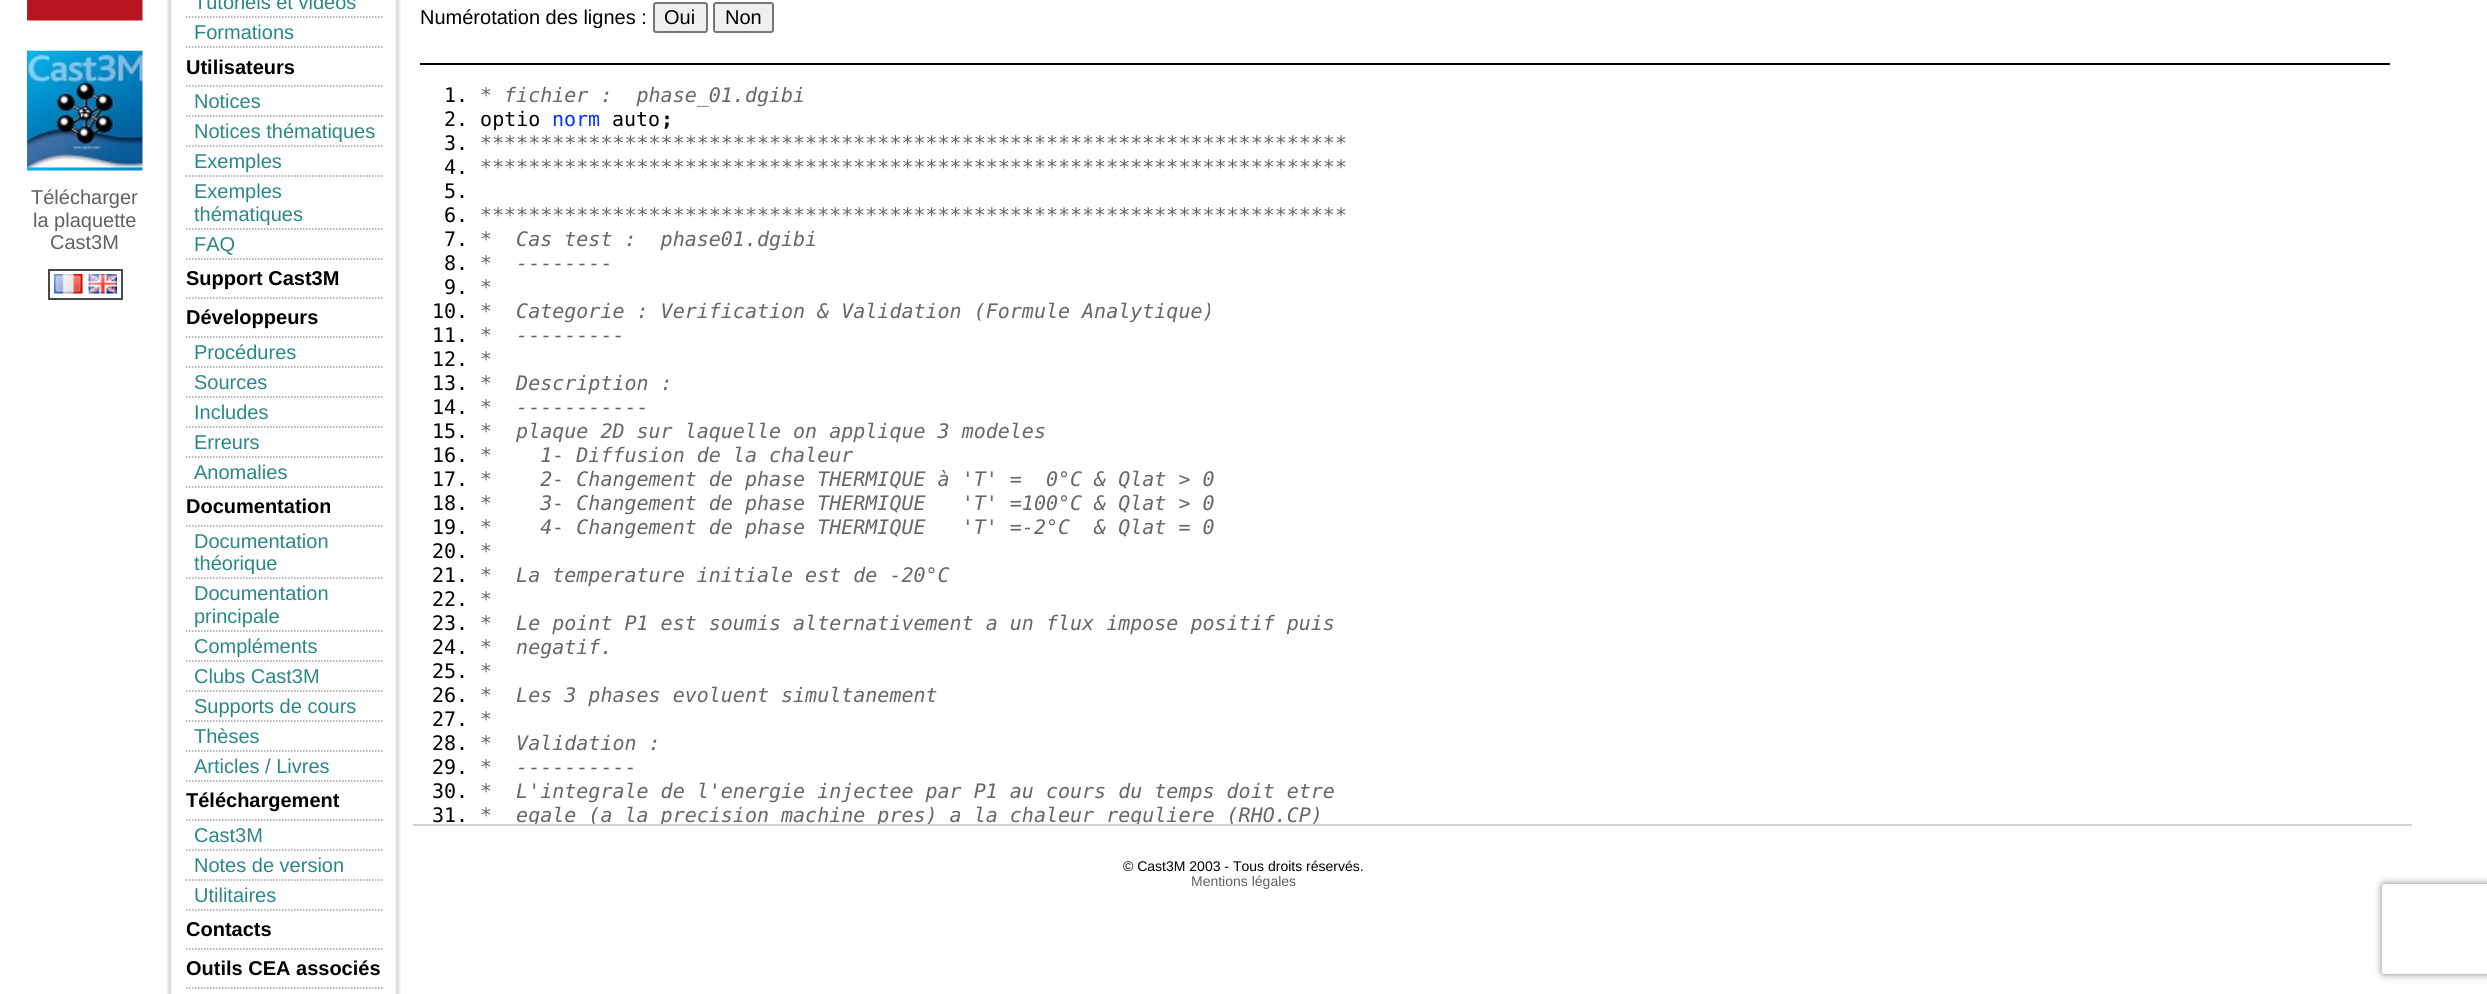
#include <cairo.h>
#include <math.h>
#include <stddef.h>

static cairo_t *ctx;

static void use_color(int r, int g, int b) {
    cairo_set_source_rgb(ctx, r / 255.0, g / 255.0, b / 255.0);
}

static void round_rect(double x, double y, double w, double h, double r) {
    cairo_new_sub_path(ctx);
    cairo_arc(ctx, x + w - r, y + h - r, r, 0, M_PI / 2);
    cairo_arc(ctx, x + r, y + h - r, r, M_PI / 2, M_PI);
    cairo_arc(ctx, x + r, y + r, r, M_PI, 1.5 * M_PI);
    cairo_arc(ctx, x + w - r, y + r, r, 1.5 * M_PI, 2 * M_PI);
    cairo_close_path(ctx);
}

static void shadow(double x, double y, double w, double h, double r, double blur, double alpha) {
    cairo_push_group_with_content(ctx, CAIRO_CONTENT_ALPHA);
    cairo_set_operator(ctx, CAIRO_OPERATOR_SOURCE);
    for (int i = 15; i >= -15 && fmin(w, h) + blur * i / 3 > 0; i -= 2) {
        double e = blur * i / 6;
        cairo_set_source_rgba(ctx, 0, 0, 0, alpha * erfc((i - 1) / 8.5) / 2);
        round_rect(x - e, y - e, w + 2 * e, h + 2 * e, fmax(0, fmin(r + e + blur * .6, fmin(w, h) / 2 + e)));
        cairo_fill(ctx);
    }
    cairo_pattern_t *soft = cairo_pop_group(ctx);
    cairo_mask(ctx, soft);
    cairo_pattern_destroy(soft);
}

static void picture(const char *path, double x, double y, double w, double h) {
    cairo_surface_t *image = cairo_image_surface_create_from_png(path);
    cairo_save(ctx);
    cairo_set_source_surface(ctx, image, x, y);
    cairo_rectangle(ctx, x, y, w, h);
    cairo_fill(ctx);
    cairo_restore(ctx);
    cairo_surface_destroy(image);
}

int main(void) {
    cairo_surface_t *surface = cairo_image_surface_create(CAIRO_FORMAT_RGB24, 2487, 994);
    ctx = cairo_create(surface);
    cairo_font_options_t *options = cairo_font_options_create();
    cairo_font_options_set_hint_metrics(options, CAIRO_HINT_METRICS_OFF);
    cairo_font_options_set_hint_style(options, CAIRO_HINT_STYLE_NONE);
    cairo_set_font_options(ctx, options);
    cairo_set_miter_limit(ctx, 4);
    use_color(255, 255, 255);
    cairo_paint(ctx);
    picture("img1.png", 27, 0, 116, 21);
    picture("img2.png", 27, 50, 116, 121);
    cairo_select_font_face(ctx, "Liberation Sans", CAIRO_FONT_SLANT_NORMAL, CAIRO_FONT_WEIGHT_NORMAL);
    cairo_set_font_size(ctx, 20);
    use_color(96, 96, 96);
    cairo_move_to(ctx, 31, 204);
    cairo_show_text(ctx, "Télécharger");
    cairo_move_to(ctx, 33, 227);
    cairo_show_text(ctx, "la plaquette");
    cairo_move_to(ctx, 50, 249);
    cairo_show_text(ctx, "Cast3M");
    cairo_rectangle(ctx, 49, 270, 73, 29);
    use_color(73, 73, 73);
    cairo_stroke(ctx);
    picture("img3.png", 54, 274, 29, 20);
    picture("img4.png", 88, 274, 29, 20);
    picture("img5.png", 166, 0, 235, 994);
    cairo_new_path(ctx);
    cairo_move_to(ctx, 186, 17);
    cairo_line_to(ctx, 382.5, 17);
    use_color(159, 159, 159);
    cairo_set_line_width(ctx, 1.5);
    cairo_set_dash(ctx, (double[]){1.5, 1.5}, 2, 0);
    cairo_stroke(ctx);
    use_color(43, 135, 132);
    cairo_move_to(ctx, 194, 9);
    cairo_show_text(ctx, "Tutoriels et vidéos");
    cairo_new_path(ctx);
    cairo_move_to(ctx, 186, 47);
    cairo_line_to(ctx, 382.5, 47);
    use_color(159, 159, 159);
    cairo_stroke(ctx);
    use_color(43, 135, 132);
    cairo_move_to(ctx, 194, 39);
    cairo_show_text(ctx, "Formations");
    cairo_select_font_face(ctx, "Liberation Sans", CAIRO_FONT_SLANT_NORMAL, CAIRO_FONT_WEIGHT_BOLD);
    use_color(0, 0, 0);
    cairo_move_to(ctx, 186, 74);
    cairo_show_text(ctx, "Utilisateurs");
    cairo_new_path(ctx);
    cairo_move_to(ctx, 186, 86);
    cairo_line_to(ctx, 382.5, 86);
    use_color(159, 159, 159);
    cairo_stroke(ctx);
    cairo_new_path(ctx);
    cairo_move_to(ctx, 186, 116);
    cairo_line_to(ctx, 382.5, 116);
    cairo_stroke(ctx);
    cairo_select_font_face(ctx, "Liberation Sans", CAIRO_FONT_SLANT_NORMAL, CAIRO_FONT_WEIGHT_NORMAL);
    use_color(43, 135, 132);
    cairo_move_to(ctx, 194, 108);
    cairo_show_text(ctx, "Notices");
    cairo_new_path(ctx);
    cairo_move_to(ctx, 186, 146);
    cairo_line_to(ctx, 382.5, 146);
    use_color(159, 159, 159);
    cairo_stroke(ctx);
    use_color(43, 135, 132);
    cairo_move_to(ctx, 194, 138);
    cairo_show_text(ctx, "Notices thématiques");
    cairo_new_path(ctx);
    cairo_move_to(ctx, 186, 176);
    cairo_line_to(ctx, 382.5, 176);
    use_color(159, 159, 159);
    cairo_stroke(ctx);
    use_color(43, 135, 132);
    cairo_move_to(ctx, 194, 168);
    cairo_show_text(ctx, "Exemples");
    cairo_new_path(ctx);
    cairo_move_to(ctx, 186, 229);
    cairo_line_to(ctx, 382.5, 229);
    use_color(159, 159, 159);
    cairo_stroke(ctx);
    use_color(43, 135, 132);
    cairo_move_to(ctx, 194, 198);
    cairo_show_text(ctx, "Exemples");
    cairo_move_to(ctx, 194, 221);
    cairo_show_text(ctx, "thématiques");
    cairo_new_path(ctx);
    cairo_move_to(ctx, 186, 259);
    cairo_line_to(ctx, 382.5, 259);
    use_color(159, 159, 159);
    cairo_stroke(ctx);
    use_color(43, 135, 132);
    cairo_move_to(ctx, 194, 251);
    cairo_show_text(ctx, "FAQ");
    cairo_select_font_face(ctx, "Liberation Sans", CAIRO_FONT_SLANT_NORMAL, CAIRO_FONT_WEIGHT_BOLD);
    use_color(0, 0, 0);
    cairo_move_to(ctx, 186, 285);
    cairo_show_text(ctx, "Support Cast3M");
    cairo_new_path(ctx);
    cairo_move_to(ctx, 186, 298);
    cairo_line_to(ctx, 382.5, 298);
    use_color(159, 159, 159);
    cairo_stroke(ctx);
    use_color(0, 0, 0);
    cairo_move_to(ctx, 186, 324);
    cairo_show_text(ctx, "Développeurs");
    cairo_new_path(ctx);
    cairo_move_to(ctx, 186, 337);
    cairo_line_to(ctx, 382.5, 337);
    use_color(159, 159, 159);
    cairo_stroke(ctx);
    cairo_new_path(ctx);
    cairo_move_to(ctx, 186, 367);
    cairo_line_to(ctx, 382.5, 367);
    cairo_stroke(ctx);
    cairo_select_font_face(ctx, "Liberation Sans", CAIRO_FONT_SLANT_NORMAL, CAIRO_FONT_WEIGHT_NORMAL);
    use_color(43, 135, 132);
    cairo_move_to(ctx, 194, 359);
    cairo_show_text(ctx, "Procédures");
    cairo_new_path(ctx);
    cairo_move_to(ctx, 186, 397);
    cairo_line_to(ctx, 382.5, 397);
    use_color(159, 159, 159);
    cairo_stroke(ctx);
    use_color(43, 135, 132);
    cairo_move_to(ctx, 194, 389);
    cairo_show_text(ctx, "Sources");
    cairo_new_path(ctx);
    cairo_move_to(ctx, 186, 427);
    cairo_line_to(ctx, 382.5, 427);
    use_color(159, 159, 159);
    cairo_stroke(ctx);
    use_color(43, 135, 132);
    cairo_move_to(ctx, 194, 419);
    cairo_show_text(ctx, "Includes");
    cairo_new_path(ctx);
    cairo_move_to(ctx, 186, 457);
    cairo_line_to(ctx, 382.5, 457);
    use_color(159, 159, 159);
    cairo_stroke(ctx);
    use_color(43, 135, 132);
    cairo_move_to(ctx, 194, 449);
    cairo_show_text(ctx, "Erreurs");
    cairo_new_path(ctx);
    cairo_move_to(ctx, 186, 487);
    cairo_line_to(ctx, 382.5, 487);
    use_color(159, 159, 159);
    cairo_stroke(ctx);
    use_color(43, 135, 132);
    cairo_move_to(ctx, 194, 479);
    cairo_show_text(ctx, "Anomalies");
    cairo_select_font_face(ctx, "Liberation Sans", CAIRO_FONT_SLANT_NORMAL, CAIRO_FONT_WEIGHT_BOLD);
    use_color(0, 0, 0);
    cairo_move_to(ctx, 186, 513);
    cairo_show_text(ctx, "Documentation");
    cairo_new_path(ctx);
    cairo_move_to(ctx, 186, 526);
    cairo_line_to(ctx, 382.5, 526);
    use_color(159, 159, 159);
    cairo_stroke(ctx);
    cairo_new_path(ctx);
    cairo_move_to(ctx, 186, 578);
    cairo_line_to(ctx, 382.5, 578);
    cairo_stroke(ctx);
    cairo_select_font_face(ctx, "Liberation Sans", CAIRO_FONT_SLANT_NORMAL, CAIRO_FONT_WEIGHT_NORMAL);
    use_color(43, 135, 132);
    cairo_move_to(ctx, 194, 548);
    cairo_show_text(ctx, "Documentation");
    cairo_move_to(ctx, 194, 570);
    cairo_show_text(ctx, "théorique");
    cairo_new_path(ctx);
    cairo_move_to(ctx, 186, 631);
    cairo_line_to(ctx, 382.5, 631);
    use_color(159, 159, 159);
    cairo_stroke(ctx);
    use_color(43, 135, 132);
    cairo_move_to(ctx, 194, 600);
    cairo_show_text(ctx, "Documentation");
    cairo_move_to(ctx, 194, 623);
    cairo_show_text(ctx, "principale");
    cairo_new_path(ctx);
    cairo_move_to(ctx, 186, 661);
    cairo_line_to(ctx, 382.5, 661);
    use_color(159, 159, 159);
    cairo_stroke(ctx);
    use_color(43, 135, 132);
    cairo_move_to(ctx, 194, 653);
    cairo_show_text(ctx, "Compléments");
    cairo_new_path(ctx);
    cairo_move_to(ctx, 186, 691);
    cairo_line_to(ctx, 382.5, 691);
    use_color(159, 159, 159);
    cairo_stroke(ctx);
    use_color(43, 135, 132);
    cairo_move_to(ctx, 194, 683);
    cairo_show_text(ctx, "Clubs Cast3M");
    cairo_new_path(ctx);
    cairo_move_to(ctx, 186, 721);
    cairo_line_to(ctx, 382.5, 721);
    use_color(159, 159, 159);
    cairo_stroke(ctx);
    use_color(43, 135, 132);
    cairo_move_to(ctx, 194, 713);
    cairo_show_text(ctx, "Supports de cours");
    cairo_new_path(ctx);
    cairo_move_to(ctx, 186, 751);
    cairo_line_to(ctx, 382.5, 751);
    use_color(159, 159, 159);
    cairo_stroke(ctx);
    use_color(43, 135, 132);
    cairo_move_to(ctx, 194, 743);
    cairo_show_text(ctx, "Thèses");
    cairo_new_path(ctx);
    cairo_move_to(ctx, 186, 781);
    cairo_line_to(ctx, 382.5, 781);
    use_color(159, 159, 159);
    cairo_stroke(ctx);
    use_color(43, 135, 132);
    cairo_move_to(ctx, 194, 773);
    cairo_show_text(ctx, "Articles / Livres");
    cairo_select_font_face(ctx, "Liberation Sans", CAIRO_FONT_SLANT_NORMAL, CAIRO_FONT_WEIGHT_BOLD);
    use_color(0, 0, 0);
    cairo_move_to(ctx, 186, 807);
    cairo_show_text(ctx, "Téléchargement");
    cairo_new_path(ctx);
    cairo_move_to(ctx, 186, 820);
    cairo_line_to(ctx, 382.5, 820);
    use_color(159, 159, 159);
    cairo_stroke(ctx);
    cairo_new_path(ctx);
    cairo_move_to(ctx, 186, 850);
    cairo_line_to(ctx, 382.5, 850);
    cairo_stroke(ctx);
    cairo_select_font_face(ctx, "Liberation Sans", CAIRO_FONT_SLANT_NORMAL, CAIRO_FONT_WEIGHT_NORMAL);
    use_color(43, 135, 132);
    cairo_move_to(ctx, 194, 842);
    cairo_show_text(ctx, "Cast3M");
    cairo_new_path(ctx);
    cairo_move_to(ctx, 186, 880);
    cairo_line_to(ctx, 382.5, 880);
    use_color(159, 159, 159);
    cairo_stroke(ctx);
    use_color(43, 135, 132);
    cairo_move_to(ctx, 194, 872);
    cairo_show_text(ctx, "Notes de version");
    cairo_new_path(ctx);
    cairo_move_to(ctx, 186, 910);
    cairo_line_to(ctx, 382.5, 910);
    use_color(159, 159, 159);
    cairo_stroke(ctx);
    use_color(43, 135, 132);
    cairo_move_to(ctx, 194, 902);
    cairo_show_text(ctx, "Utilitaires");
    cairo_select_font_face(ctx, "Liberation Sans", CAIRO_FONT_SLANT_NORMAL, CAIRO_FONT_WEIGHT_BOLD);
    use_color(0, 0, 0);
    cairo_move_to(ctx, 186, 936);
    cairo_show_text(ctx, "Contacts");
    cairo_new_path(ctx);
    cairo_move_to(ctx, 186, 949);
    cairo_line_to(ctx, 382.5, 949);
    use_color(159, 159, 159);
    cairo_stroke(ctx);
    use_color(0, 0, 0);
    cairo_move_to(ctx, 186, 975);
    cairo_show_text(ctx, "Outils CEA associés");
    cairo_new_path(ctx);
    cairo_move_to(ctx, 186, 988);
    cairo_line_to(ctx, 382.5, 988);
    use_color(159, 159, 159);
    cairo_stroke(ctx);
    use_color(213, 213, 213);
    cairo_rectangle(ctx, 413, 824, 1999, 2);
    cairo_fill(ctx);
    cairo_select_font_face(ctx, "Liberation Sans", CAIRO_FONT_SLANT_NORMAL, CAIRO_FONT_WEIGHT_NORMAL);
    use_color(0, 0, 0);
    cairo_move_to(ctx, 420, 24);
    cairo_show_text(ctx, "Numérotation des lignes :");
    use_color(239, 239, 239);
    round_rect(654, 3, 53, 29, 2);
    cairo_fill_preserve(ctx);
    use_color(118, 118, 118);
    cairo_set_line_width(ctx, 2);
    cairo_set_dash(ctx, NULL, 0, 0);
    cairo_stroke(ctx);
    use_color(0, 0, 0);
    cairo_move_to(ctx, 664, 24);
    cairo_show_text(ctx, "Oui");
    use_color(239, 239, 239);
    round_rect(714, 3, 59, 29, 2);
    cairo_fill_preserve(ctx);
    use_color(118, 118, 118);
    cairo_stroke(ctx);
    use_color(0, 0, 0);
    cairo_move_to(ctx, 725, 24);
    cairo_show_text(ctx, "Non");
    cairo_rectangle(ctx, 420, 63, 1970, 2);
    cairo_fill(ctx);
    cairo_select_font_face(ctx, "DejaVu Sans Mono", CAIRO_FONT_SLANT_NORMAL, CAIRO_FONT_WEIGHT_NORMAL);
    cairo_move_to(ctx, 444, 102);
    cairo_show_text(ctx, "1.");
    cairo_select_font_face(ctx, "DejaVu Sans Mono", CAIRO_FONT_SLANT_ITALIC, CAIRO_FONT_WEIGHT_NORMAL);
    use_color(102, 102, 102);
    cairo_move_to(ctx, 480, 102);
    cairo_show_text(ctx, "* fichier :  phase_01.dgibi");
    cairo_select_font_face(ctx, "DejaVu Sans Mono", CAIRO_FONT_SLANT_NORMAL, CAIRO_FONT_WEIGHT_NORMAL);
    use_color(0, 0, 0);
    cairo_move_to(ctx, 444, 126);
    cairo_show_text(ctx, "2. optio");
    use_color(0, 51, 255);
    cairo_move_to(ctx, 552, 126);
    cairo_show_text(ctx, "norm");
    use_color(0, 0, 0);
    cairo_move_to(ctx, 612, 126);
    cairo_show_text(ctx, "auto");
    cairo_select_font_face(ctx, "DejaVu Sans Mono", CAIRO_FONT_SLANT_NORMAL, CAIRO_FONT_WEIGHT_BOLD);
    cairo_move_to(ctx, 661, 126);
    cairo_show_text(ctx, ";");
    cairo_select_font_face(ctx, "DejaVu Sans Mono", CAIRO_FONT_SLANT_NORMAL, CAIRO_FONT_WEIGHT_NORMAL);
    cairo_move_to(ctx, 444, 150);
    cairo_show_text(ctx, "3.");
    cairo_select_font_face(ctx, "DejaVu Sans Mono", CAIRO_FONT_SLANT_ITALIC, CAIRO_FONT_WEIGHT_NORMAL);
    use_color(102, 102, 102);
    cairo_move_to(ctx, 480, 150);
    cairo_show_text(ctx, "************************************************************************");
    cairo_select_font_face(ctx, "DejaVu Sans Mono", CAIRO_FONT_SLANT_NORMAL, CAIRO_FONT_WEIGHT_NORMAL);
    use_color(0, 0, 0);
    cairo_move_to(ctx, 444, 174);
    cairo_show_text(ctx, "4.");
    cairo_select_font_face(ctx, "DejaVu Sans Mono", CAIRO_FONT_SLANT_ITALIC, CAIRO_FONT_WEIGHT_NORMAL);
    use_color(102, 102, 102);
    cairo_move_to(ctx, 480, 174);
    cairo_show_text(ctx, "************************************************************************");
    cairo_select_font_face(ctx, "DejaVu Sans Mono", CAIRO_FONT_SLANT_NORMAL, CAIRO_FONT_WEIGHT_NORMAL);
    use_color(0, 0, 0);
    cairo_move_to(ctx, 444, 198);
    cairo_show_text(ctx, "5.");
    cairo_move_to(ctx, 444, 222);
    cairo_show_text(ctx, "6.");
    cairo_select_font_face(ctx, "DejaVu Sans Mono", CAIRO_FONT_SLANT_ITALIC, CAIRO_FONT_WEIGHT_NORMAL);
    use_color(102, 102, 102);
    cairo_move_to(ctx, 480, 222);
    cairo_show_text(ctx, "************************************************************************");
    cairo_select_font_face(ctx, "DejaVu Sans Mono", CAIRO_FONT_SLANT_NORMAL, CAIRO_FONT_WEIGHT_NORMAL);
    use_color(0, 0, 0);
    cairo_move_to(ctx, 444, 246);
    cairo_show_text(ctx, "7.");
    cairo_select_font_face(ctx, "DejaVu Sans Mono", CAIRO_FONT_SLANT_ITALIC, CAIRO_FONT_WEIGHT_NORMAL);
    use_color(102, 102, 102);
    cairo_move_to(ctx, 480, 246);
    cairo_show_text(ctx, "*  Cas test :  phase01.dgibi");
    cairo_select_font_face(ctx, "DejaVu Sans Mono", CAIRO_FONT_SLANT_NORMAL, CAIRO_FONT_WEIGHT_NORMAL);
    use_color(0, 0, 0);
    cairo_move_to(ctx, 444, 270);
    cairo_show_text(ctx, "8.");
    cairo_select_font_face(ctx, "DejaVu Sans Mono", CAIRO_FONT_SLANT_ITALIC, CAIRO_FONT_WEIGHT_NORMAL);
    use_color(102, 102, 102);
    cairo_move_to(ctx, 480, 270);
    cairo_show_text(ctx, "*  --------");
    cairo_select_font_face(ctx, "DejaVu Sans Mono", CAIRO_FONT_SLANT_NORMAL, CAIRO_FONT_WEIGHT_NORMAL);
    use_color(0, 0, 0);
    cairo_move_to(ctx, 444, 294);
    cairo_show_text(ctx, "9.");
    cairo_select_font_face(ctx, "DejaVu Sans Mono", CAIRO_FONT_SLANT_ITALIC, CAIRO_FONT_WEIGHT_NORMAL);
    use_color(102, 102, 102);
    cairo_move_to(ctx, 480, 294);
    cairo_show_text(ctx, "*");
    cairo_select_font_face(ctx, "DejaVu Sans Mono", CAIRO_FONT_SLANT_NORMAL, CAIRO_FONT_WEIGHT_NORMAL);
    use_color(0, 0, 0);
    cairo_move_to(ctx, 432, 318);
    cairo_show_text(ctx, "10.");
    cairo_select_font_face(ctx, "DejaVu Sans Mono", CAIRO_FONT_SLANT_ITALIC, CAIRO_FONT_WEIGHT_NORMAL);
    use_color(102, 102, 102);
    cairo_move_to(ctx, 480, 318);
    cairo_show_text(ctx, "*  Categorie : Verification & Validation (Formule Analytique)");
    cairo_select_font_face(ctx, "DejaVu Sans Mono", CAIRO_FONT_SLANT_NORMAL, CAIRO_FONT_WEIGHT_NORMAL);
    use_color(0, 0, 0);
    cairo_move_to(ctx, 432, 342);
    cairo_show_text(ctx, "11.");
    cairo_select_font_face(ctx, "DejaVu Sans Mono", CAIRO_FONT_SLANT_ITALIC, CAIRO_FONT_WEIGHT_NORMAL);
    use_color(102, 102, 102);
    cairo_move_to(ctx, 480, 342);
    cairo_show_text(ctx, "*  ---------");
    cairo_select_font_face(ctx, "DejaVu Sans Mono", CAIRO_FONT_SLANT_NORMAL, CAIRO_FONT_WEIGHT_NORMAL);
    use_color(0, 0, 0);
    cairo_move_to(ctx, 432, 366);
    cairo_show_text(ctx, "12.");
    cairo_select_font_face(ctx, "DejaVu Sans Mono", CAIRO_FONT_SLANT_ITALIC, CAIRO_FONT_WEIGHT_NORMAL);
    use_color(102, 102, 102);
    cairo_move_to(ctx, 480, 366);
    cairo_show_text(ctx, "*");
    cairo_select_font_face(ctx, "DejaVu Sans Mono", CAIRO_FONT_SLANT_NORMAL, CAIRO_FONT_WEIGHT_NORMAL);
    use_color(0, 0, 0);
    cairo_move_to(ctx, 432, 390);
    cairo_show_text(ctx, "13.");
    cairo_select_font_face(ctx, "DejaVu Sans Mono", CAIRO_FONT_SLANT_ITALIC, CAIRO_FONT_WEIGHT_NORMAL);
    use_color(102, 102, 102);
    cairo_move_to(ctx, 480, 390);
    cairo_show_text(ctx, "*  Description :");
    cairo_select_font_face(ctx, "DejaVu Sans Mono", CAIRO_FONT_SLANT_NORMAL, CAIRO_FONT_WEIGHT_NORMAL);
    use_color(0, 0, 0);
    cairo_move_to(ctx, 432, 414);
    cairo_show_text(ctx, "14.");
    cairo_select_font_face(ctx, "DejaVu Sans Mono", CAIRO_FONT_SLANT_ITALIC, CAIRO_FONT_WEIGHT_NORMAL);
    use_color(102, 102, 102);
    cairo_move_to(ctx, 480, 414);
    cairo_show_text(ctx, "*  -----------");
    cairo_select_font_face(ctx, "DejaVu Sans Mono", CAIRO_FONT_SLANT_NORMAL, CAIRO_FONT_WEIGHT_NORMAL);
    use_color(0, 0, 0);
    cairo_move_to(ctx, 432, 438);
    cairo_show_text(ctx, "15.");
    cairo_select_font_face(ctx, "DejaVu Sans Mono", CAIRO_FONT_SLANT_ITALIC, CAIRO_FONT_WEIGHT_NORMAL);
    use_color(102, 102, 102);
    cairo_move_to(ctx, 480, 438);
    cairo_show_text(ctx, "*  plaque 2D sur laquelle on applique 3 modeles");
    cairo_select_font_face(ctx, "DejaVu Sans Mono", CAIRO_FONT_SLANT_NORMAL, CAIRO_FONT_WEIGHT_NORMAL);
    use_color(0, 0, 0);
    cairo_move_to(ctx, 432, 462);
    cairo_show_text(ctx, "16.");
    cairo_select_font_face(ctx, "DejaVu Sans Mono", CAIRO_FONT_SLANT_ITALIC, CAIRO_FONT_WEIGHT_NORMAL);
    use_color(102, 102, 102);
    cairo_move_to(ctx, 480, 462);
    cairo_show_text(ctx, "*    1- Diffusion de la chaleur");
    cairo_select_font_face(ctx, "DejaVu Sans Mono", CAIRO_FONT_SLANT_NORMAL, CAIRO_FONT_WEIGHT_NORMAL);
    use_color(0, 0, 0);
    cairo_move_to(ctx, 432, 486);
    cairo_show_text(ctx, "17.");
    cairo_select_font_face(ctx, "DejaVu Sans Mono", CAIRO_FONT_SLANT_ITALIC, CAIRO_FONT_WEIGHT_NORMAL);
    use_color(102, 102, 102);
    cairo_move_to(ctx, 480, 486);
    cairo_show_text(ctx, "*    2- Changement de phase THERMIQUE à 'T' =  0°C & Qlat > 0");
    cairo_select_font_face(ctx, "DejaVu Sans Mono", CAIRO_FONT_SLANT_NORMAL, CAIRO_FONT_WEIGHT_NORMAL);
    use_color(0, 0, 0);
    cairo_move_to(ctx, 432, 510);
    cairo_show_text(ctx, "18.");
    cairo_select_font_face(ctx, "DejaVu Sans Mono", CAIRO_FONT_SLANT_ITALIC, CAIRO_FONT_WEIGHT_NORMAL);
    use_color(102, 102, 102);
    cairo_move_to(ctx, 480, 510);
    cairo_show_text(ctx, "*    3- Changement de phase THERMIQUE   'T' =100°C & Qlat > 0");
    cairo_select_font_face(ctx, "DejaVu Sans Mono", CAIRO_FONT_SLANT_NORMAL, CAIRO_FONT_WEIGHT_NORMAL);
    use_color(0, 0, 0);
    cairo_move_to(ctx, 432, 534);
    cairo_show_text(ctx, "19.");
    cairo_select_font_face(ctx, "DejaVu Sans Mono", CAIRO_FONT_SLANT_ITALIC, CAIRO_FONT_WEIGHT_NORMAL);
    use_color(102, 102, 102);
    cairo_move_to(ctx, 480, 534);
    cairo_show_text(ctx, "*    4- Changement de phase THERMIQUE   'T' =-2°C  & Qlat = 0");
    cairo_select_font_face(ctx, "DejaVu Sans Mono", CAIRO_FONT_SLANT_NORMAL, CAIRO_FONT_WEIGHT_NORMAL);
    use_color(0, 0, 0);
    cairo_move_to(ctx, 432, 558);
    cairo_show_text(ctx, "20.");
    cairo_select_font_face(ctx, "DejaVu Sans Mono", CAIRO_FONT_SLANT_ITALIC, CAIRO_FONT_WEIGHT_NORMAL);
    use_color(102, 102, 102);
    cairo_move_to(ctx, 480, 558);
    cairo_show_text(ctx, "*");
    cairo_select_font_face(ctx, "DejaVu Sans Mono", CAIRO_FONT_SLANT_NORMAL, CAIRO_FONT_WEIGHT_NORMAL);
    use_color(0, 0, 0);
    cairo_move_to(ctx, 432, 582);
    cairo_show_text(ctx, "21.");
    cairo_select_font_face(ctx, "DejaVu Sans Mono", CAIRO_FONT_SLANT_ITALIC, CAIRO_FONT_WEIGHT_NORMAL);
    use_color(102, 102, 102);
    cairo_move_to(ctx, 480, 582);
    cairo_show_text(ctx, "*  La temperature initiale est de -20°C");
    cairo_select_font_face(ctx, "DejaVu Sans Mono", CAIRO_FONT_SLANT_NORMAL, CAIRO_FONT_WEIGHT_NORMAL);
    use_color(0, 0, 0);
    cairo_move_to(ctx, 432, 606);
    cairo_show_text(ctx, "22.");
    cairo_select_font_face(ctx, "DejaVu Sans Mono", CAIRO_FONT_SLANT_ITALIC, CAIRO_FONT_WEIGHT_NORMAL);
    use_color(102, 102, 102);
    cairo_move_to(ctx, 480, 606);
    cairo_show_text(ctx, "*");
    cairo_select_font_face(ctx, "DejaVu Sans Mono", CAIRO_FONT_SLANT_NORMAL, CAIRO_FONT_WEIGHT_NORMAL);
    use_color(0, 0, 0);
    cairo_move_to(ctx, 432, 630);
    cairo_show_text(ctx, "23.");
    cairo_select_font_face(ctx, "DejaVu Sans Mono", CAIRO_FONT_SLANT_ITALIC, CAIRO_FONT_WEIGHT_NORMAL);
    use_color(102, 102, 102);
    cairo_move_to(ctx, 480, 630);
    cairo_show_text(ctx, "*  Le point P1 est soumis alternativement a un flux impose positif puis");
    cairo_select_font_face(ctx, "DejaVu Sans Mono", CAIRO_FONT_SLANT_NORMAL, CAIRO_FONT_WEIGHT_NORMAL);
    use_color(0, 0, 0);
    cairo_move_to(ctx, 432, 654);
    cairo_show_text(ctx, "24.");
    cairo_select_font_face(ctx, "DejaVu Sans Mono", CAIRO_FONT_SLANT_ITALIC, CAIRO_FONT_WEIGHT_NORMAL);
    use_color(102, 102, 102);
    cairo_move_to(ctx, 480, 654);
    cairo_show_text(ctx, "*  negatif.");
    cairo_select_font_face(ctx, "DejaVu Sans Mono", CAIRO_FONT_SLANT_NORMAL, CAIRO_FONT_WEIGHT_NORMAL);
    use_color(0, 0, 0);
    cairo_move_to(ctx, 432, 678);
    cairo_show_text(ctx, "25.");
    cairo_select_font_face(ctx, "DejaVu Sans Mono", CAIRO_FONT_SLANT_ITALIC, CAIRO_FONT_WEIGHT_NORMAL);
    use_color(102, 102, 102);
    cairo_move_to(ctx, 480, 678);
    cairo_show_text(ctx, "*");
    cairo_select_font_face(ctx, "DejaVu Sans Mono", CAIRO_FONT_SLANT_NORMAL, CAIRO_FONT_WEIGHT_NORMAL);
    use_color(0, 0, 0);
    cairo_move_to(ctx, 432, 702);
    cairo_show_text(ctx, "26.");
    cairo_select_font_face(ctx, "DejaVu Sans Mono", CAIRO_FONT_SLANT_ITALIC, CAIRO_FONT_WEIGHT_NORMAL);
    use_color(102, 102, 102);
    cairo_move_to(ctx, 480, 702);
    cairo_show_text(ctx, "*  Les 3 phases evoluent simultanement");
    cairo_select_font_face(ctx, "DejaVu Sans Mono", CAIRO_FONT_SLANT_NORMAL, CAIRO_FONT_WEIGHT_NORMAL);
    use_color(0, 0, 0);
    cairo_move_to(ctx, 432, 726);
    cairo_show_text(ctx, "27.");
    cairo_select_font_face(ctx, "DejaVu Sans Mono", CAIRO_FONT_SLANT_ITALIC, CAIRO_FONT_WEIGHT_NORMAL);
    use_color(102, 102, 102);
    cairo_move_to(ctx, 480, 726);
    cairo_show_text(ctx, "*");
    cairo_select_font_face(ctx, "DejaVu Sans Mono", CAIRO_FONT_SLANT_NORMAL, CAIRO_FONT_WEIGHT_NORMAL);
    use_color(0, 0, 0);
    cairo_move_to(ctx, 432, 750);
    cairo_show_text(ctx, "28.");
    cairo_select_font_face(ctx, "DejaVu Sans Mono", CAIRO_FONT_SLANT_ITALIC, CAIRO_FONT_WEIGHT_NORMAL);
    use_color(102, 102, 102);
    cairo_move_to(ctx, 480, 750);
    cairo_show_text(ctx, "*  Validation :");
    cairo_select_font_face(ctx, "DejaVu Sans Mono", CAIRO_FONT_SLANT_NORMAL, CAIRO_FONT_WEIGHT_NORMAL);
    use_color(0, 0, 0);
    cairo_move_to(ctx, 432, 774);
    cairo_show_text(ctx, "29.");
    cairo_select_font_face(ctx, "DejaVu Sans Mono", CAIRO_FONT_SLANT_ITALIC, CAIRO_FONT_WEIGHT_NORMAL);
    use_color(102, 102, 102);
    cairo_move_to(ctx, 480, 774);
    cairo_show_text(ctx, "*  ----------");
    cairo_select_font_face(ctx, "DejaVu Sans Mono", CAIRO_FONT_SLANT_NORMAL, CAIRO_FONT_WEIGHT_NORMAL);
    use_color(0, 0, 0);
    cairo_move_to(ctx, 432, 798);
    cairo_show_text(ctx, "30.");
    cairo_select_font_face(ctx, "DejaVu Sans Mono", CAIRO_FONT_SLANT_ITALIC, CAIRO_FONT_WEIGHT_NORMAL);
    use_color(102, 102, 102);
    cairo_move_to(ctx, 480, 798);
    cairo_show_text(ctx, "*  L'integrale de l'energie injectee par P1 au cours du temps doit etre");
    cairo_select_font_face(ctx, "DejaVu Sans Mono", CAIRO_FONT_SLANT_NORMAL, CAIRO_FONT_WEIGHT_NORMAL);
    use_color(0, 0, 0);
    cairo_move_to(ctx, 432, 822);
    cairo_show_text(ctx, "31.");
    cairo_save(ctx);
    cairo_rectangle(ctx, 413, 0, 1999, 824);
    cairo_clip(ctx);
    cairo_select_font_face(ctx, "DejaVu Sans Mono", CAIRO_FONT_SLANT_ITALIC, CAIRO_FONT_WEIGHT_NORMAL);
    use_color(102, 102, 102);
    cairo_move_to(ctx, 480, 822);
    cairo_show_text(ctx, "*  egale (a la precision machine pres) a la chaleur reguliere (RHO.CP)");
    cairo_restore(ctx);
    cairo_select_font_face(ctx, "Liberation Sans", CAIRO_FONT_SLANT_NORMAL, CAIRO_FONT_WEIGHT_NORMAL);
    cairo_set_font_size(ctx, 14);
    cairo_move_to(ctx, 1123, 871);
    cairo_show_text(ctx, "© Cast3M 2003 - Tous droits réservés.");
    use_color(96, 96, 96);
    cairo_move_to(ctx, 1191, 886);
    cairo_show_text(ctx, "Mentions légales");
    cairo_save(ctx);
    cairo_set_fill_rule(ctx, CAIRO_FILL_RULE_EVEN_ODD);
    cairo_new_path(ctx);
    cairo_move_to(ctx, 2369, 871);
    cairo_line_to(ctx, 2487, 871);
    cairo_line_to(ctx, 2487, 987);
    cairo_line_to(ctx, 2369, 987);
    cairo_close_path(ctx);
    cairo_move_to(ctx, 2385, 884);
    cairo_line_to(ctx, 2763, 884);
    cairo_curve_to(ctx, 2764.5, 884, 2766, 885.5, 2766, 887);
    cairo_line_to(ctx, 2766, 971);
    cairo_curve_to(ctx, 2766, 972.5, 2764.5, 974, 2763, 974);
    cairo_line_to(ctx, 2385, 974);
    cairo_curve_to(ctx, 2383.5, 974, 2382, 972.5, 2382, 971);
    cairo_line_to(ctx, 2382, 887);
    cairo_curve_to(ctx, 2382, 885.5, 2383.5, 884, 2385, 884);
    cairo_close_path(ctx);
    cairo_clip(ctx);
    use_color(128, 128, 128);
    shadow(2382, 884, 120, 90, 3, 4, 1);
    cairo_restore(ctx);
    cairo_surface_write_to_png(surface, "result.png");
    cairo_font_options_destroy(options);
    cairo_destroy(ctx);
    cairo_surface_destroy(surface);
    return 0;
}
